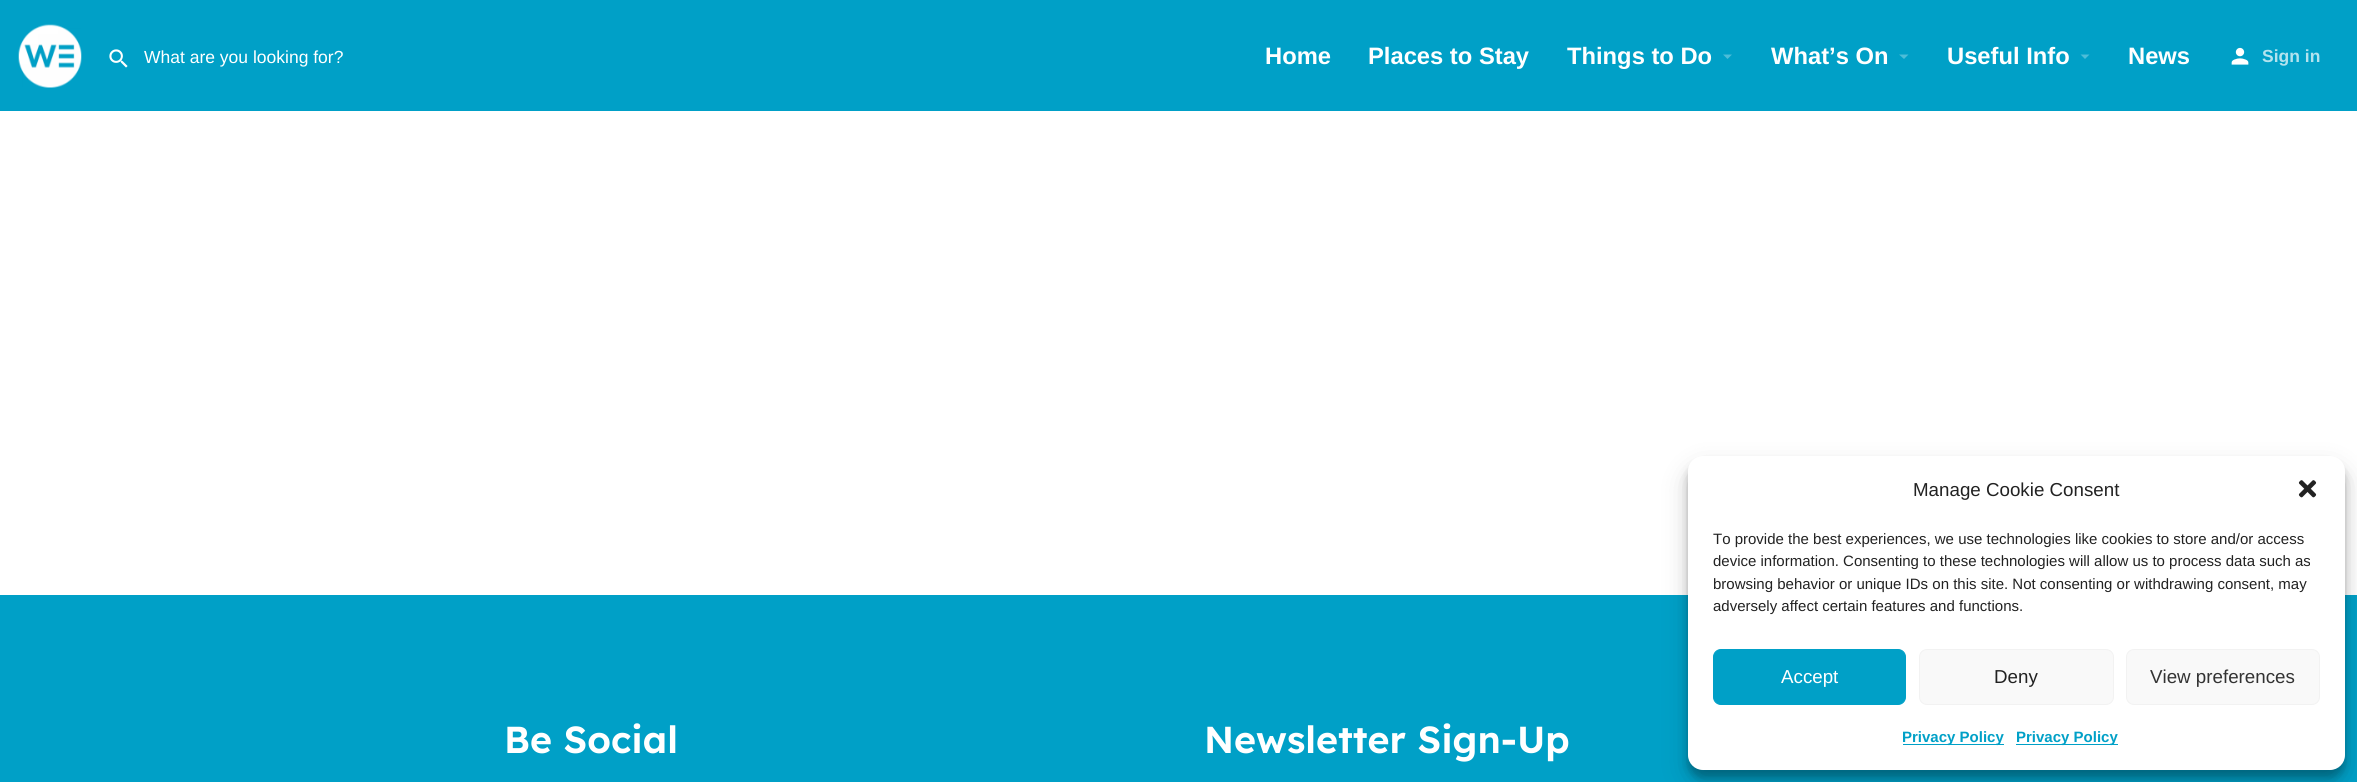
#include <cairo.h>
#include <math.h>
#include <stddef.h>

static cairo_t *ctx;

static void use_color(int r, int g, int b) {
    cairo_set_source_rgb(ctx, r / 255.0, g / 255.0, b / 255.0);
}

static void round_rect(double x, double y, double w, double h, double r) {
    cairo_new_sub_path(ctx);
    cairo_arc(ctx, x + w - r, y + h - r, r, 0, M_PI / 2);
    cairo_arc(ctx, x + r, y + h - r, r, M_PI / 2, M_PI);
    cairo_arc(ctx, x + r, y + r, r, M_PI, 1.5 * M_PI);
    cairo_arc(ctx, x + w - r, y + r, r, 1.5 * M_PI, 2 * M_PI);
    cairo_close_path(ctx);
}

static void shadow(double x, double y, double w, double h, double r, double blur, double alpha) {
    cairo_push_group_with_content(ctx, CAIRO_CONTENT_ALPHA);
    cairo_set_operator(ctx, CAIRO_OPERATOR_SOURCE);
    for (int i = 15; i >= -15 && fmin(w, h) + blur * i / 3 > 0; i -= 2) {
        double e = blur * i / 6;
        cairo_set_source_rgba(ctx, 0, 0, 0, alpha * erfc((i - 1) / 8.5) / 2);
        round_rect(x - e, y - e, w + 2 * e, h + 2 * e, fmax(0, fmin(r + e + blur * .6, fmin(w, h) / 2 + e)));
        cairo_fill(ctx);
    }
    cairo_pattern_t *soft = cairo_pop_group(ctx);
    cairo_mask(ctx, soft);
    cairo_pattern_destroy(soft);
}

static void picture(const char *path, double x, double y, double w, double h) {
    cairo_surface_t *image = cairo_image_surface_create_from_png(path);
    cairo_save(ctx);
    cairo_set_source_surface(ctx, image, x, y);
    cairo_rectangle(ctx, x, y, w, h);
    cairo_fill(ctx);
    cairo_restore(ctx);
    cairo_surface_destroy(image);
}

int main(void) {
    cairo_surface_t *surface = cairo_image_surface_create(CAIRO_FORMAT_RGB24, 2357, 782);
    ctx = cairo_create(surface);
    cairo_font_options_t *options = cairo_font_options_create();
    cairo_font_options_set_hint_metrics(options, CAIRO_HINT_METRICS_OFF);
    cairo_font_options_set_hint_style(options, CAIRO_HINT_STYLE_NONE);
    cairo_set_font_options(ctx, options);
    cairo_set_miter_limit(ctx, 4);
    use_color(255, 255, 255);
    cairo_paint(ctx);
    use_color(0, 160, 199);
    cairo_rectangle(ctx, 0, 0, 2357, 111);
    cairo_fill(ctx);
    picture("img1.png", 18, 24, 64, 64);
    picture("img2.png", 109, 49, 19, 19);
    cairo_select_font_face(ctx, "Liberation Sans", CAIRO_FONT_SLANT_NORMAL, CAIRO_FONT_WEIGHT_NORMAL);
    cairo_set_font_size(ctx, 17.5);
    use_color(255, 255, 255);
    cairo_move_to(ctx, 144, 63);
    cairo_show_text(ctx, "What are you looking for?");
    cairo_select_font_face(ctx, "Liberation Sans", CAIRO_FONT_SLANT_NORMAL, CAIRO_FONT_WEIGHT_BOLD);
    cairo_set_font_size(ctx, 23.75);
    cairo_move_to(ctx, 1265, 64);
    cairo_show_text(ctx, "Home");
    cairo_move_to(ctx, 1368, 64);
    cairo_show_text(ctx, "Places to Stay");
    cairo_move_to(ctx, 1567, 64);
    cairo_show_text(ctx, "Things to Do");
    use_color(77, 189, 216);
    cairo_new_path(ctx);
    cairo_move_to(ctx, 1723, 54.5);
    cairo_line_to(ctx, 1732, 54.5);
    cairo_line_to(ctx, 1727.5, 59);
    cairo_close_path(ctx);
    cairo_fill(ctx);
    use_color(255, 255, 255);
    cairo_move_to(ctx, 1771, 64);
    cairo_show_text(ctx, "What’s On");
    use_color(77, 189, 216);
    cairo_new_path(ctx);
    cairo_move_to(ctx, 1899, 54.5);
    cairo_line_to(ctx, 1908.5, 54.5);
    cairo_line_to(ctx, 1904, 59);
    cairo_close_path(ctx);
    cairo_fill(ctx);
    use_color(255, 255, 255);
    cairo_move_to(ctx, 1947, 64);
    cairo_show_text(ctx, "Useful Info");
    use_color(77, 189, 216);
    cairo_new_path(ctx);
    cairo_move_to(ctx, 2080.5, 54.5);
    cairo_line_to(ctx, 2089.5, 54.5);
    cairo_line_to(ctx, 2085, 59);
    cairo_close_path(ctx);
    cairo_fill(ctx);
    use_color(255, 255, 255);
    cairo_move_to(ctx, 2128, 64);
    cairo_show_text(ctx, "News");
    picture("img3.png", 2231, 47, 18, 18);
    cairo_set_font_size(ctx, 17.5);
    use_color(179, 227, 238);
    cairo_move_to(ctx, 2262, 62);
    cairo_show_text(ctx, "Sign in");
    use_color(0, 160, 199);
    cairo_rectangle(ctx, 0, 595, 2357, 187);
    cairo_fill(ctx);
    cairo_select_font_face(ctx, "Lexend SemiBold", CAIRO_FONT_SLANT_NORMAL, CAIRO_FONT_WEIGHT_NORMAL);
    cairo_set_font_size(ctx, 37.5);
    use_color(255, 255, 255);
    cairo_move_to(ctx, 504, 753);
    cairo_show_text(ctx, "Be Social");
    cairo_move_to(ctx, 1204, 753);
    cairo_show_text(ctx, "Newsletter Sign-Up");
    use_color(0, 0, 0);
    shadow(1688, 464, 657, 314, 15, 4, 0.23);
    shadow(1688, 469, 657, 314, 15, 12.5, 0.19);
    use_color(255, 255, 255);
    round_rect(1688, 456, 657, 314, 15);
    cairo_fill(ctx);
    cairo_select_font_face(ctx, "Liberation Sans", CAIRO_FONT_SLANT_NORMAL, CAIRO_FONT_WEIGHT_NORMAL);
    cairo_set_font_size(ctx, 18.75);
    use_color(34, 34, 34);
    cairo_move_to(ctx, 1913, 496);
    cairo_show_text(ctx, "Manage Cookie Consent");
    picture("img4.png", 2298, 480, 19, 18);
    cairo_set_font_size(ctx, 15);
    cairo_move_to(ctx, 1713, 544);
    cairo_show_text(ctx, "To provide the best experiences, we use technologies like cookies to store and/or access");
    cairo_move_to(ctx, 1713, 566);
    cairo_show_text(ctx, "device information. Consenting to these technologies will allow us to process data such as");
    cairo_move_to(ctx, 1713, 589);
    cairo_show_text(ctx, "browsing behavior or unique IDs on this site. Not consenting or withdrawing consent, may");
    cairo_move_to(ctx, 1713, 611);
    cairo_show_text(ctx, "adversely affect certain features and functions.");
    use_color(0, 160, 199);
    round_rect(1713.5, 649.5, 192, 55, 7.5);
    cairo_fill_preserve(ctx);
    cairo_set_line_width(ctx, 1);
    cairo_stroke(ctx);
    cairo_set_font_size(ctx, 18.75);
    use_color(255, 255, 255);
    cairo_move_to(ctx, 1781, 683);
    cairo_show_text(ctx, "Accept");
    use_color(249, 249, 249);
    round_rect(1919.5, 649.5, 194, 55, 7.5);
    cairo_fill_preserve(ctx);
    use_color(242, 242, 242);
    cairo_stroke(ctx);
    use_color(34, 34, 34);
    cairo_move_to(ctx, 1994, 683);
    cairo_show_text(ctx, "Deny");
    use_color(249, 249, 249);
    round_rect(2126.5, 649.5, 193, 55, 7.5);
    cairo_fill_preserve(ctx);
    use_color(242, 242, 242);
    cairo_stroke(ctx);
    use_color(51, 51, 51);
    cairo_move_to(ctx, 2150, 683);
    cairo_show_text(ctx, "View preferences");
    use_color(0, 160, 199);
    cairo_rectangle(ctx, 1903, 744, 101, 1);
    cairo_fill(ctx);
    cairo_select_font_face(ctx, "Liberation Sans", CAIRO_FONT_SLANT_NORMAL, CAIRO_FONT_WEIGHT_BOLD);
    cairo_set_font_size(ctx, 15);
    cairo_move_to(ctx, 1902, 742);
    cairo_show_text(ctx, "Privacy Policy");
    cairo_rectangle(ctx, 2016, 744, 102, 1);
    cairo_fill(ctx);
    cairo_move_to(ctx, 2016, 742);
    cairo_show_text(ctx, "Privacy Policy");
    cairo_surface_write_to_png(surface, "result.png");
    cairo_font_options_destroy(options);
    cairo_destroy(ctx);
    cairo_surface_destroy(surface);
    return 0;
}
